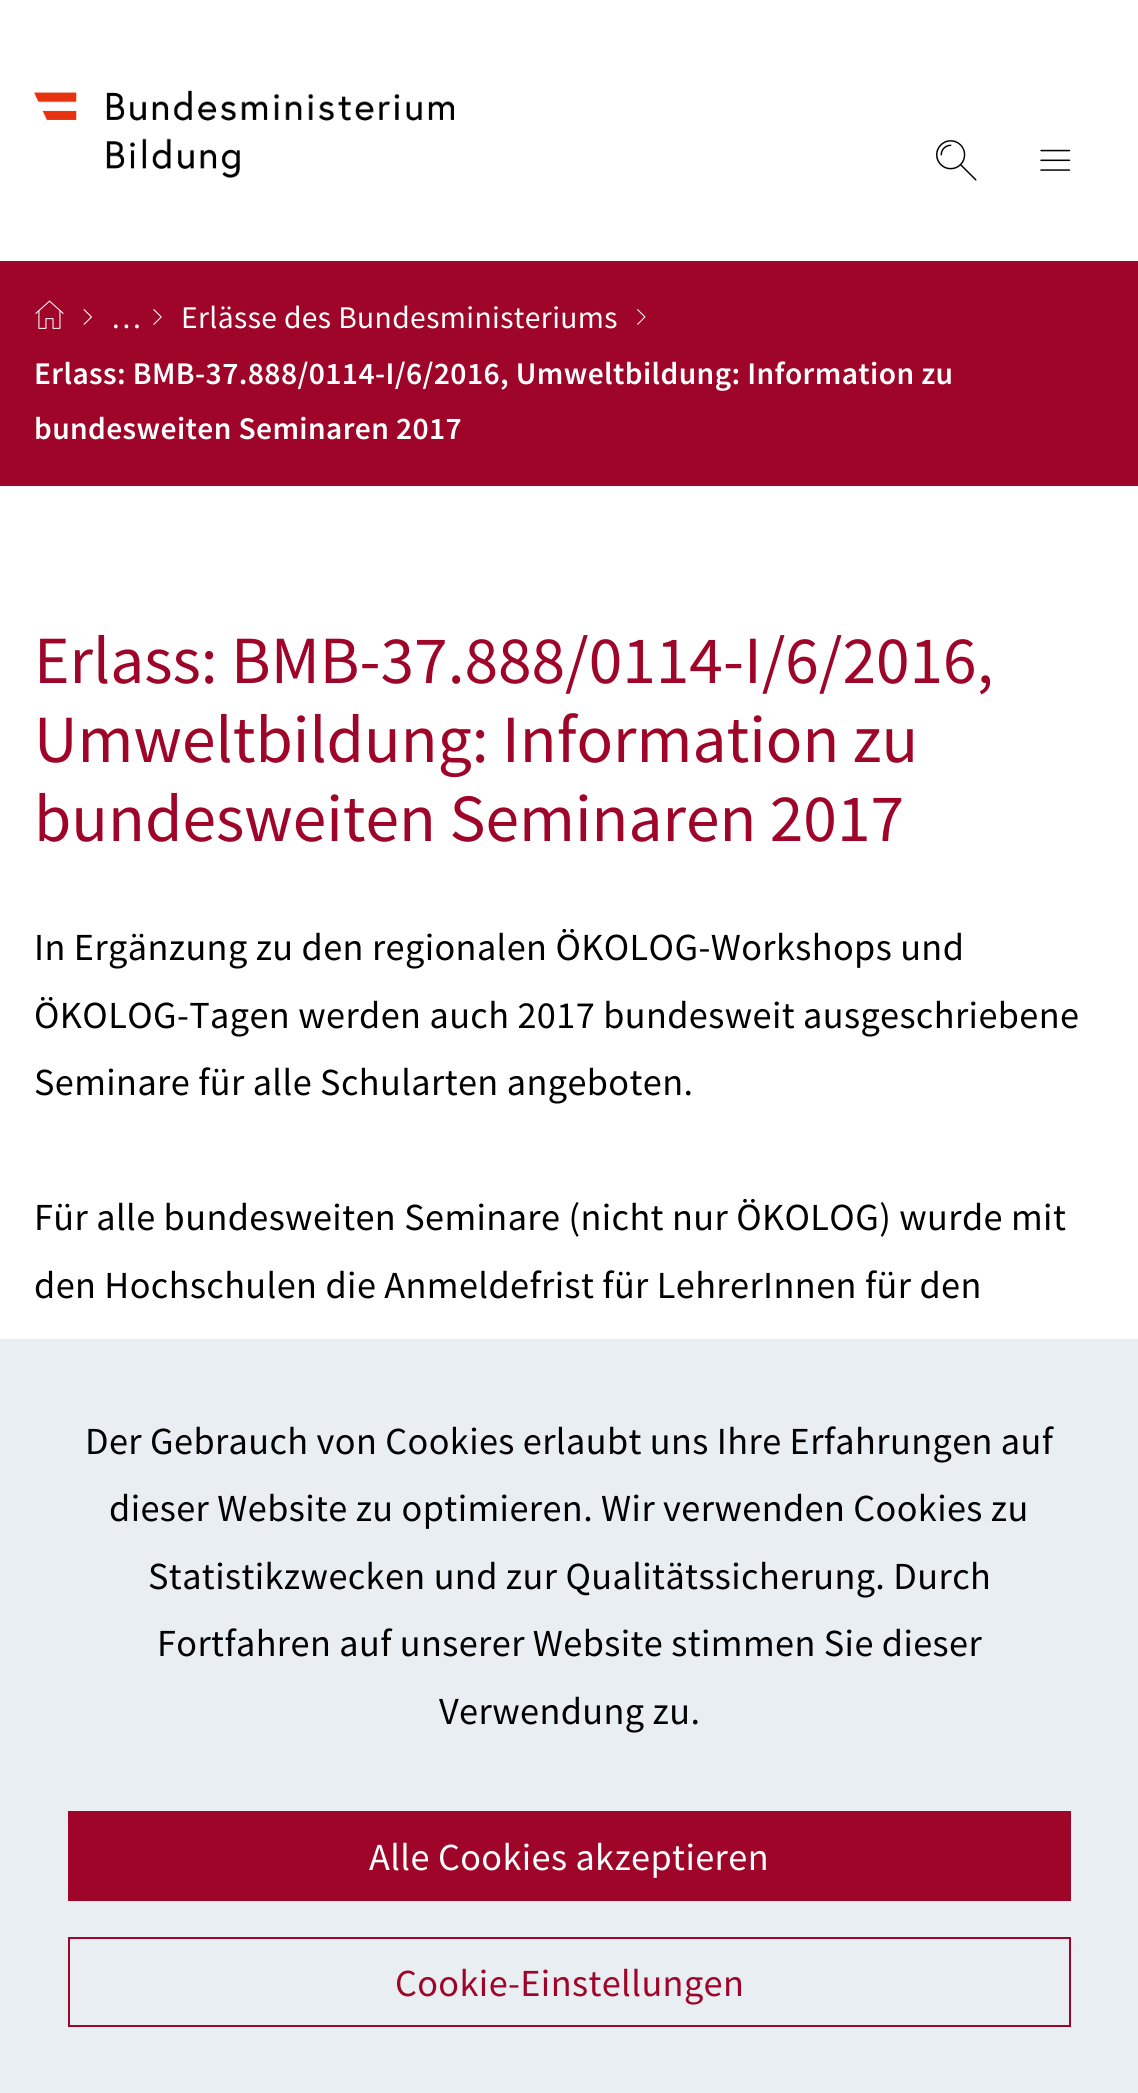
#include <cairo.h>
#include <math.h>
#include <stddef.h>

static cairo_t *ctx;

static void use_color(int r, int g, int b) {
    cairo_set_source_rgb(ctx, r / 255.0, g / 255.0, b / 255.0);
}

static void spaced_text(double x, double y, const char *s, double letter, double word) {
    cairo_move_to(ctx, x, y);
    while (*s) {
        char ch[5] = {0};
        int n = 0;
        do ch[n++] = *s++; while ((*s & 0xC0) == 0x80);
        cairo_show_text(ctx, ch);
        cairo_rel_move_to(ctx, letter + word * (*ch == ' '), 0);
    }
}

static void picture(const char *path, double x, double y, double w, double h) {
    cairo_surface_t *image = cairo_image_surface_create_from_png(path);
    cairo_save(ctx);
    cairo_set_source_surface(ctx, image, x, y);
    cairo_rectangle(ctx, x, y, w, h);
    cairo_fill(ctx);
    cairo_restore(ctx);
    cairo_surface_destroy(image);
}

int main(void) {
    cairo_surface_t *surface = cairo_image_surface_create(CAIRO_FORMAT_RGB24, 1138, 2093);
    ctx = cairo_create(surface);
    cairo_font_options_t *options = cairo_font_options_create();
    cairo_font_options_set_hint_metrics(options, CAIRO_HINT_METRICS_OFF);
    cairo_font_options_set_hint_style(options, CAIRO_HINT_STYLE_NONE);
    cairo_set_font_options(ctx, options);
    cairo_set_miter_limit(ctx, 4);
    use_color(255, 255, 255);
    cairo_paint(ctx);
    picture("img1.png", 34, 90, 420, 88);
    picture("img2.png", 936, 140, 41, 41);
    picture("img3.png", 1040, 149, 31, 22);
    use_color(158, 5, 41);
    cairo_rectangle(ctx, 0, 261, 1138, 225);
    cairo_fill(ctx);
    picture("img4.png", 35, 300, 29, 29);
    picture("img5.png", 83, 309, 9, 16);
    picture("img6.png", 153, 309, 9, 16);
    cairo_select_font_face(ctx, "Source Sans Pro", CAIRO_FONT_SLANT_NORMAL, CAIRO_FONT_WEIGHT_NORMAL);
    cairo_set_font_size(ctx, 31.5);
    use_color(255, 255, 255);
    spaced_text(111, 328, "…", 0.4, 0);
    spaced_text(181, 328, "Erlässe des Bundesministeriums", 0.4, 0);
    picture("img7.png", 637, 309, 9, 16);
    cairo_select_font_face(ctx, "Source Sans Pro SemiBold", CAIRO_FONT_SLANT_NORMAL, CAIRO_FONT_WEIGHT_NORMAL);
    spaced_text(34, 384, "Erlass: BMB-37.888/0114-I/6/2016, Umweltbildung: Information zu", 0.4, 0);
    spaced_text(34, 439, "bundesweiten Seminaren 2017", 0.4, 0);
    cairo_select_font_face(ctx, "Source Sans Pro", CAIRO_FONT_SLANT_NORMAL, CAIRO_FONT_WEIGHT_NORMAL);
    cairo_set_font_size(ctx, 67.5);
    use_color(158, 5, 41);
    cairo_move_to(ctx, 34, 683);
    cairo_show_text(ctx, "Erlass: BMB-37.888/0114-I/6/2016,");
    cairo_move_to(ctx, 34, 762);
    cairo_show_text(ctx, "Umweltbildung: Information zu");
    cairo_move_to(ctx, 34, 841);
    cairo_show_text(ctx, "bundesweiten Seminaren 2017");
    cairo_set_font_size(ctx, 38.25);
    use_color(0, 0, 0);
    spaced_text(34, 960, "In Ergänzung zu den regionalen ÖKOLOG-Workshops und", 0.4, 0);
    spaced_text(34, 1028, "ÖKOLOG-Tagen werden auch 2017 bundesweit ausgeschriebene", 0.4, 0);
    spaced_text(34, 1095, "Seminare für alle Schularten angeboten.", 0.4, 0);
    spaced_text(34, 1230, "Für alle bundesweiten Seminare (nicht nur ÖKOLOG) wurde mit", 0.4, 0);
    spaced_text(34, 1298, "den Hochschulen die Anmeldefrist für LehrerInnen für den", 0.4, 0);
    use_color(232, 238, 241);
    cairo_rectangle(ctx, 0, 1339, 1138, 754);
    cairo_fill(ctx);
    use_color(0, 0, 0);
    spaced_text(85, 1454, "Der Gebrauch von Cookies erlaubt uns Ihre Erfahrungen auf", 0.4, 0);
    spaced_text(109, 1521, "dieser Website zu optimieren. Wir verwenden Cookies zu", 0.4, 0);
    spaced_text(148, 1589, "Statistikzwecken und zur Qualitätssicherung. Durch", 0.4, 0);
    spaced_text(157, 1656, "Fortfahren auf unserer Website stimmen Sie dieser", 0.4, 0);
    spaced_text(439, 1724, "Verwendung zu.", 0.4, 0);
    use_color(158, 5, 41);
    cairo_rectangle(ctx, 68, 1811, 1003, 90);
    cairo_fill(ctx);
    use_color(255, 255, 255);
    spaced_text(369, 1870, "Alle Cookies akzeptieren", 0.4, 0);
    cairo_rectangle(ctx, 69, 1938, 1001, 88);
    use_color(158, 5, 41);
    cairo_stroke(ctx);
    spaced_text(395, 1996, "Cookie-Einstellungen", 0.4, 0);
    cairo_surface_write_to_png(surface, "result.png");
    cairo_font_options_destroy(options);
    cairo_destroy(ctx);
    cairo_surface_destroy(surface);
    return 0;
}
